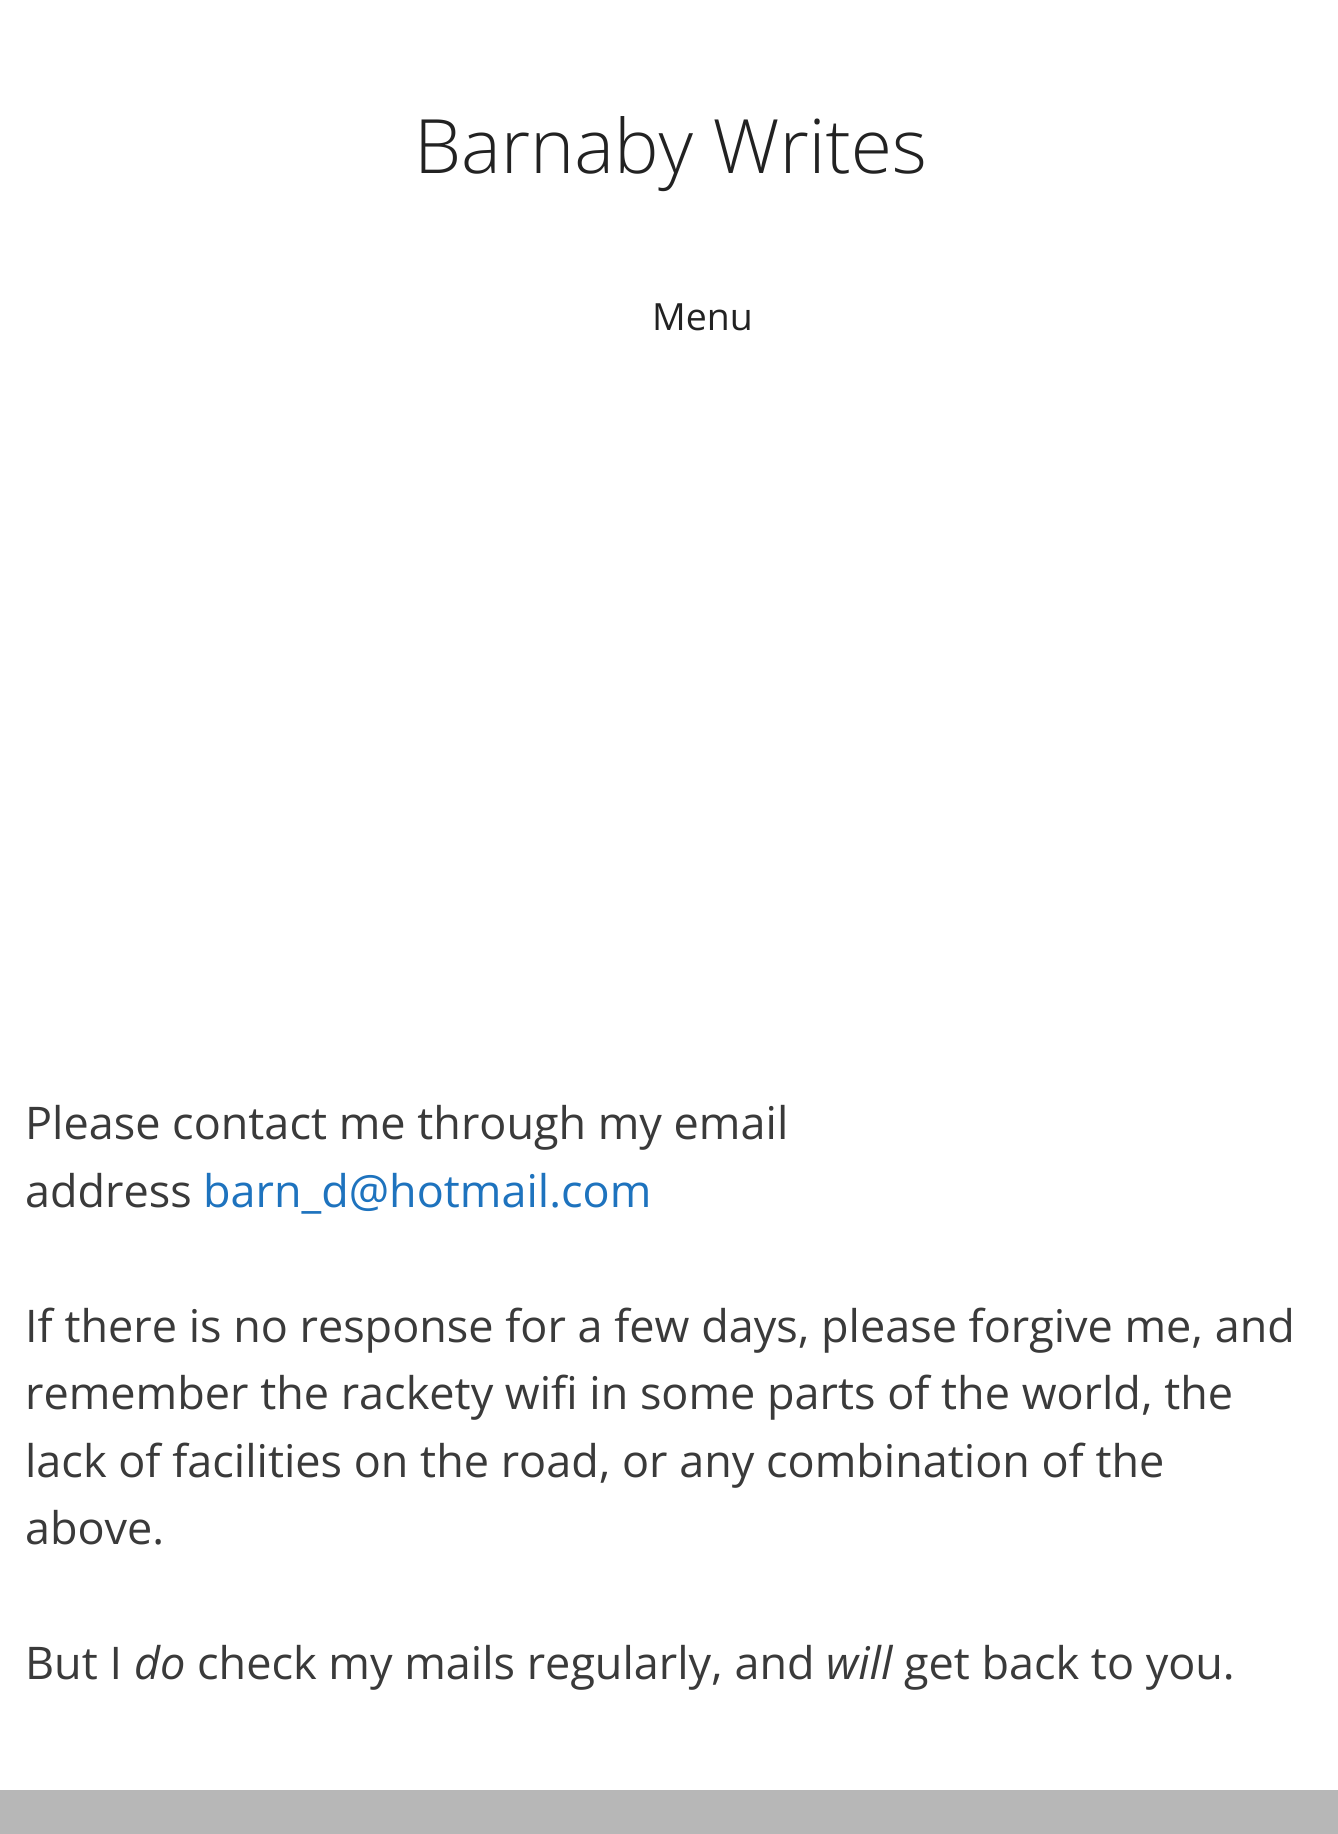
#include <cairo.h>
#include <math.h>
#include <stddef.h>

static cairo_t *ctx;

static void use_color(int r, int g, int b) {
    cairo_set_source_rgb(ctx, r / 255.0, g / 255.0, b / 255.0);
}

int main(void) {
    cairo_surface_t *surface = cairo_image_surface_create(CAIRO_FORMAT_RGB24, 1338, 1834);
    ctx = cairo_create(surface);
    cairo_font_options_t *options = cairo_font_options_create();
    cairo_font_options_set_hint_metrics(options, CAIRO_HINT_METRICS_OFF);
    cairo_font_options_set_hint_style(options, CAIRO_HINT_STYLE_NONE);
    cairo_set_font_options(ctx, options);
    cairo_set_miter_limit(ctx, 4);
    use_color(255, 255, 255);
    cairo_paint(ctx);
    cairo_select_font_face(ctx, "Open Sans Light", CAIRO_FONT_SLANT_NORMAL, CAIRO_FONT_WEIGHT_NORMAL);
    cairo_set_font_size(ctx, 75);
    use_color(34, 34, 34);
    cairo_move_to(ctx, 414, 173);
    cairo_show_text(ctx, "Barnaby Writes");
    cairo_select_font_face(ctx, "Open Sans", CAIRO_FONT_SLANT_NORMAL, CAIRO_FONT_WEIGHT_NORMAL);
    cairo_set_font_size(ctx, 37.5);
    cairo_move_to(ctx, 652, 330);
    cairo_show_text(ctx, "Menu");
    cairo_set_font_size(ctx, 45);
    use_color(58, 58, 58);
    cairo_move_to(ctx, 25, 1139);
    cairo_show_text(ctx, "Please contact me through my email");
    cairo_move_to(ctx, 25, 1207);
    cairo_show_text(ctx, "address");
    use_color(30, 115, 190);
    cairo_move_to(ctx, 203, 1207);
    cairo_show_text(ctx, "barn_d@hotmail.com");
    use_color(58, 58, 58);
    cairo_move_to(ctx, 25, 1342);
    cairo_show_text(ctx, "If there is no response for a few days, please forgive me, and");
    cairo_move_to(ctx, 25, 1409);
    cairo_show_text(ctx, "remember the rackety wifi in some parts of the world, the");
    cairo_move_to(ctx, 25, 1477);
    cairo_show_text(ctx, "lack of facilities on the road, or any combination of the");
    cairo_move_to(ctx, 25, 1544);
    cairo_show_text(ctx, "above.");
    cairo_move_to(ctx, 25, 1679);
    cairo_show_text(ctx, "But I");
    cairo_select_font_face(ctx, "Open Sans", CAIRO_FONT_SLANT_ITALIC, CAIRO_FONT_WEIGHT_NORMAL);
    cairo_move_to(ctx, 134, 1679);
    cairo_show_text(ctx, "do");
    cairo_select_font_face(ctx, "Open Sans", CAIRO_FONT_SLANT_NORMAL, CAIRO_FONT_WEIGHT_NORMAL);
    cairo_move_to(ctx, 197, 1679);
    cairo_show_text(ctx, "check my mails regularly, and");
    cairo_select_font_face(ctx, "Open Sans", CAIRO_FONT_SLANT_ITALIC, CAIRO_FONT_WEIGHT_NORMAL);
    cairo_move_to(ctx, 826, 1679);
    cairo_show_text(ctx, "will");
    cairo_select_font_face(ctx, "Open Sans", CAIRO_FONT_SLANT_NORMAL, CAIRO_FONT_WEIGHT_NORMAL);
    cairo_move_to(ctx, 904, 1679);
    cairo_show_text(ctx, "get back to you.");
    use_color(183, 183, 183);
    cairo_rectangle(ctx, 0, 1790, 1338, 44);
    cairo_fill(ctx);
    cairo_surface_write_to_png(surface, "result.png");
    cairo_font_options_destroy(options);
    cairo_destroy(ctx);
    cairo_surface_destroy(surface);
    return 0;
}
